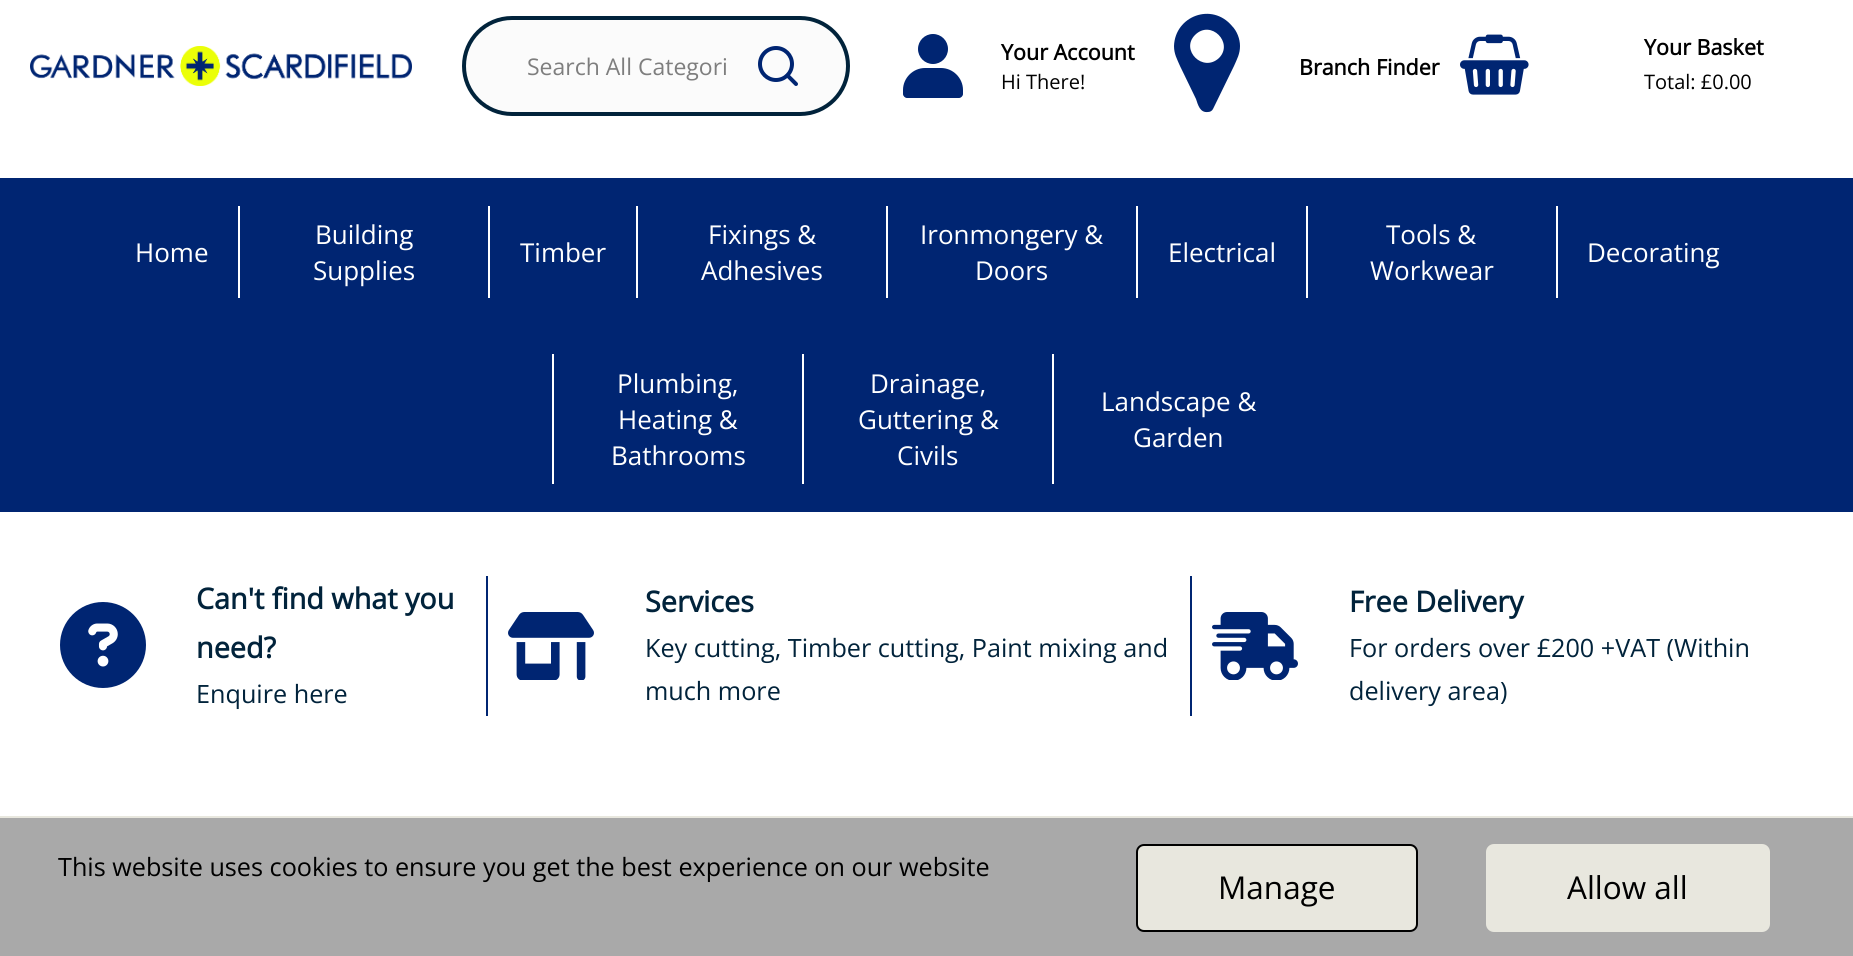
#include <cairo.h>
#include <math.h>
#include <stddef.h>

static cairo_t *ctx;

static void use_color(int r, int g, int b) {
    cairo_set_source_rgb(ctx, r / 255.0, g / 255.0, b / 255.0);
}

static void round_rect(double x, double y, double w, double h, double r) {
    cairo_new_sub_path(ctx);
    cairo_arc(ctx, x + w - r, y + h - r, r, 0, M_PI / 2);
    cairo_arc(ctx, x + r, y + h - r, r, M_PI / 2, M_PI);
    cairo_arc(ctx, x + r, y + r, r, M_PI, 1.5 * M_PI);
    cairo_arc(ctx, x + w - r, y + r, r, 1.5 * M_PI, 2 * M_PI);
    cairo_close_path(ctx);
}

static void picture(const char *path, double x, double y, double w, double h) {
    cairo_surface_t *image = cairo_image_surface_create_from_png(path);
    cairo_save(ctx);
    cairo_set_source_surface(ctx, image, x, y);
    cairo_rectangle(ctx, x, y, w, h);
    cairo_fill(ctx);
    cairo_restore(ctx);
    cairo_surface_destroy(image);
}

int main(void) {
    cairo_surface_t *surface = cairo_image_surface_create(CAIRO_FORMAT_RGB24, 1853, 956);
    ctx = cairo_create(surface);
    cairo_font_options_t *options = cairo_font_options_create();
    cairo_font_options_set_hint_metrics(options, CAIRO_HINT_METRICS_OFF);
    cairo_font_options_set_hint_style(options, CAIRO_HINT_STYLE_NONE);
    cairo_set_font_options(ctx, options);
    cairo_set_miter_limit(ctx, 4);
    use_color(255, 255, 255);
    cairo_paint(ctx);
    picture("img1.png", 30, 46, 382, 40);
    use_color(251, 251, 251);
    round_rect(464, 18, 384, 96, 48);
    cairo_fill_preserve(ctx);
    use_color(1, 35, 59);
    cairo_set_line_width(ctx, 4);
    cairo_stroke(ctx);
    cairo_save(ctx);
    cairo_rectangle(ctx, 526, 52, 200, 30);
    cairo_clip(ctx);
    cairo_select_font_face(ctx, "Open Sans", CAIRO_FONT_SLANT_NORMAL, CAIRO_FONT_WEIGHT_NORMAL);
    cairo_set_font_size(ctx, 23);
    use_color(126, 126, 126);
    cairo_move_to(ctx, 527, 75);
    cairo_show_text(ctx, "Search All Categori");
    cairo_restore(ctx);
    cairo_new_path(ctx);
    cairo_arc(ctx, 776, 64, 16, 0, 2 * M_PI);
    use_color(0, 37, 114);
    cairo_stroke(ctx);
    cairo_new_path(ctx);
    cairo_move_to(ctx, 796, 84);
    cairo_line_to(ctx, 787.5, 75.5);
    cairo_set_line_cap(ctx, CAIRO_LINE_CAP_ROUND);
    cairo_set_line_join(ctx, CAIRO_LINE_JOIN_ROUND);
    cairo_stroke(ctx);
    cairo_arc(ctx, 933, 49, 15, 0, 2 * M_PI);
    cairo_fill(ctx);
    cairo_new_path(ctx);
    cairo_move_to(ctx, 963, 90);
    cairo_line_to(ctx, 963, 94);
    cairo_curve_to(ctx, 963, 96, 961, 98, 959, 98);
    cairo_line_to(ctx, 907, 98);
    cairo_curve_to(ctx, 905, 98, 903, 96, 903, 94);
    cairo_line_to(ctx, 903, 90);
    cairo_curve_to(ctx, 903, 78, 913, 68, 925, 68);
    cairo_line_to(ctx, 941, 68);
    cairo_curve_to(ctx, 953, 68, 963, 78, 963, 90);
    cairo_close_path(ctx);
    cairo_fill(ctx);
    cairo_select_font_face(ctx, "Open Sans", CAIRO_FONT_SLANT_NORMAL, CAIRO_FONT_WEIGHT_BOLD);
    cairo_set_font_size(ctx, 21.5);
    use_color(0, 0, 0);
    cairo_move_to(ctx, 1001, 60);
    cairo_show_text(ctx, "Your Account");
    cairo_select_font_face(ctx, "Open Sans", CAIRO_FONT_SLANT_NORMAL, CAIRO_FONT_WEIGHT_NORMAL);
    cairo_set_font_size(ctx, 20);
    cairo_move_to(ctx, 1001, 89);
    cairo_show_text(ctx, "Hi There!");
    use_color(0, 37, 114);
    cairo_new_path(ctx);
    cairo_move_to(ctx, 1219, 58);
    cairo_curve_to(ctx, 1234, 43, 1211, 19, 1195, 35);
    cairo_curve_to(ctx, 1180, 50, 1203, 73, 1219, 58);
    cairo_close_path(ctx);
    cairo_move_to(ctx, 1240, 46);
    cairo_curve_to(ctx, 1240, 54, 1237, 59, 1234, 66);
    cairo_line_to(ctx, 1213, 109);
    cairo_curve_to(ctx, 1212, 111, 1210, 112, 1208, 112);
    cairo_curve_to(ctx, 1200, 113, 1198, 105, 1196, 99);
    cairo_line_to(ctx, 1180, 66);
    cairo_curve_to(ctx, 1177, 59, 1174, 54, 1174, 46);
    cairo_curve_to(ctx, 1175, 16, 1212, 2, 1232, 26);
    cairo_curve_to(ctx, 1237, 31, 1240, 39, 1240, 46);
    cairo_close_path(ctx);
    cairo_fill(ctx);
    cairo_select_font_face(ctx, "Open Sans", CAIRO_FONT_SLANT_NORMAL, CAIRO_FONT_WEIGHT_BOLD);
    cairo_set_font_size(ctx, 21.5);
    use_color(0, 0, 0);
    cairo_move_to(ctx, 1299, 75);
    cairo_show_text(ctx, "Branch Finder");
    picture("img2.png", 1460, 34, 69, 61);
    cairo_move_to(ctx, 1644, 55);
    cairo_show_text(ctx, "Your Basket");
    cairo_select_font_face(ctx, "Open Sans", CAIRO_FONT_SLANT_NORMAL, CAIRO_FONT_WEIGHT_NORMAL);
    cairo_set_font_size(ctx, 20);
    cairo_move_to(ctx, 1644, 89);
    cairo_show_text(ctx, "Total: £0.00");
    use_color(0, 37, 114);
    cairo_rectangle(ctx, 0, 178, 1853, 334);
    cairo_fill(ctx);
    cairo_set_font_size(ctx, 26);
    use_color(255, 255, 255);
    cairo_move_to(ctx, 135, 262);
    cairo_show_text(ctx, "Home");
    cairo_rectangle(ctx, 238, 206, 2, 92);
    cairo_fill(ctx);
    cairo_move_to(ctx, 315, 244);
    cairo_show_text(ctx, "Building");
    cairo_move_to(ctx, 313, 280);
    cairo_show_text(ctx, "Supplies");
    cairo_rectangle(ctx, 488, 206, 2, 92);
    cairo_fill(ctx);
    cairo_move_to(ctx, 520, 262);
    cairo_show_text(ctx, "Timber");
    cairo_rectangle(ctx, 636, 206, 2, 92);
    cairo_fill(ctx);
    cairo_move_to(ctx, 708, 244);
    cairo_show_text(ctx, "Fixings &");
    cairo_move_to(ctx, 701, 280);
    cairo_show_text(ctx, "Adhesives");
    cairo_rectangle(ctx, 886, 206, 2, 92);
    cairo_fill(ctx);
    cairo_move_to(ctx, 920, 244);
    cairo_show_text(ctx, "Ironmongery &");
    cairo_move_to(ctx, 975, 280);
    cairo_show_text(ctx, "Doors");
    cairo_rectangle(ctx, 1136, 206, 2, 92);
    cairo_fill(ctx);
    cairo_move_to(ctx, 1168, 262);
    cairo_show_text(ctx, "Electrical");
    cairo_rectangle(ctx, 1306, 206, 2, 92);
    cairo_fill(ctx);
    cairo_move_to(ctx, 1386, 244);
    cairo_show_text(ctx, "Tools &");
    cairo_move_to(ctx, 1370, 280);
    cairo_show_text(ctx, "Workwear");
    cairo_rectangle(ctx, 1556, 206, 2, 92);
    cairo_fill(ctx);
    cairo_move_to(ctx, 1587, 262);
    cairo_show_text(ctx, "Decorating");
    cairo_rectangle(ctx, 552, 354, 2, 130);
    cairo_fill(ctx);
    cairo_move_to(ctx, 617, 393);
    cairo_show_text(ctx, "Plumbing,");
    cairo_move_to(ctx, 618, 429);
    cairo_show_text(ctx, "Heating &");
    cairo_move_to(ctx, 611, 465);
    cairo_show_text(ctx, "Bathrooms");
    cairo_rectangle(ctx, 802, 354, 2, 130);
    cairo_fill(ctx);
    cairo_move_to(ctx, 870, 393);
    cairo_show_text(ctx, "Drainage,");
    cairo_move_to(ctx, 858, 429);
    cairo_show_text(ctx, "Guttering &");
    cairo_move_to(ctx, 897, 465);
    cairo_show_text(ctx, "Civils");
    cairo_rectangle(ctx, 1052, 354, 2, 130);
    cairo_fill(ctx);
    cairo_move_to(ctx, 1101, 411);
    cairo_show_text(ctx, "Landscape &");
    cairo_move_to(ctx, 1133, 447);
    cairo_show_text(ctx, "Garden");
    picture("img3.png", 60, 602, 86, 86);
    cairo_select_font_face(ctx, "Open Sans", CAIRO_FONT_SLANT_NORMAL, CAIRO_FONT_WEIGHT_BOLD);
    cairo_set_font_size(ctx, 28.75);
    use_color(1, 35, 59);
    cairo_move_to(ctx, 196, 609);
    cairo_show_text(ctx, "Can't find what you");
    cairo_move_to(ctx, 196, 658);
    cairo_show_text(ctx, "need?");
    cairo_select_font_face(ctx, "Open Sans", CAIRO_FONT_SLANT_NORMAL, CAIRO_FONT_WEIGHT_NORMAL);
    cairo_set_font_size(ctx, 25.2);
    cairo_move_to(ctx, 196, 703);
    cairo_show_text(ctx, "Enquire here");
    use_color(0, 37, 114);
    cairo_rectangle(ctx, 486, 576, 2, 140);
    cairo_fill(ctx);
    picture("img4.png", 508, 612, 86, 68);
    cairo_select_font_face(ctx, "Open Sans", CAIRO_FONT_SLANT_NORMAL, CAIRO_FONT_WEIGHT_BOLD);
    cairo_set_font_size(ctx, 28.75);
    use_color(1, 35, 59);
    cairo_move_to(ctx, 645, 612);
    cairo_show_text(ctx, "Services");
    cairo_select_font_face(ctx, "Open Sans", CAIRO_FONT_SLANT_NORMAL, CAIRO_FONT_WEIGHT_NORMAL);
    cairo_set_font_size(ctx, 25.2);
    cairo_move_to(ctx, 645, 657);
    cairo_show_text(ctx, "Key cutting, Timber cutting, Paint mixing and");
    cairo_move_to(ctx, 645, 700);
    cairo_show_text(ctx, "much more");
    use_color(0, 37, 114);
    cairo_rectangle(ctx, 1190, 576, 2, 140);
    cairo_fill(ctx);
    picture("img5.png", 1212, 612, 86, 68);
    cairo_select_font_face(ctx, "Open Sans", CAIRO_FONT_SLANT_NORMAL, CAIRO_FONT_WEIGHT_BOLD);
    cairo_set_font_size(ctx, 28.75);
    use_color(1, 35, 59);
    cairo_move_to(ctx, 1349, 612);
    cairo_show_text(ctx, "Free Delivery");
    cairo_select_font_face(ctx, "Open Sans", CAIRO_FONT_SLANT_NORMAL, CAIRO_FONT_WEIGHT_NORMAL);
    cairo_set_font_size(ctx, 25.2);
    cairo_move_to(ctx, 1349, 657);
    cairo_show_text(ctx, "For orders over £200 +VAT (Within");
    cairo_move_to(ctx, 1349, 700);
    cairo_show_text(ctx, "delivery area)");
    use_color(169, 169, 169);
    cairo_rectangle(ctx, 0, 818, 1853, 138);
    cairo_fill(ctx);
    use_color(232, 231, 222);
    cairo_rectangle(ctx, 0, 816, 1853, 2);
    cairo_fill(ctx);
    use_color(0, 0, 0);
    cairo_move_to(ctx, 58, 876);
    cairo_show_text(ctx, "This website uses cookies to ensure you get the best experience on our website");
    use_color(232, 231, 222);
    round_rect(1137, 845, 280, 86, 7);
    cairo_fill_preserve(ctx);
    use_color(0, 0, 0);
    cairo_set_line_width(ctx, 2);
    cairo_set_line_cap(ctx, CAIRO_LINE_CAP_BUTT);
    cairo_set_line_join(ctx, CAIRO_LINE_JOIN_MITER);
    cairo_stroke(ctx);
    cairo_set_font_size(ctx, 31.5);
    cairo_move_to(ctx, 1218, 899);
    cairo_show_text(ctx, "Manage");
    use_color(232, 231, 222);
    round_rect(1487, 845, 282, 86, 7);
    cairo_fill_preserve(ctx);
    cairo_stroke(ctx);
    use_color(0, 0, 0);
    cairo_move_to(ctx, 1567, 899);
    cairo_show_text(ctx, "Allow all");
    cairo_surface_write_to_png(surface, "result.png");
    cairo_font_options_destroy(options);
    cairo_destroy(ctx);
    cairo_surface_destroy(surface);
    return 0;
}
